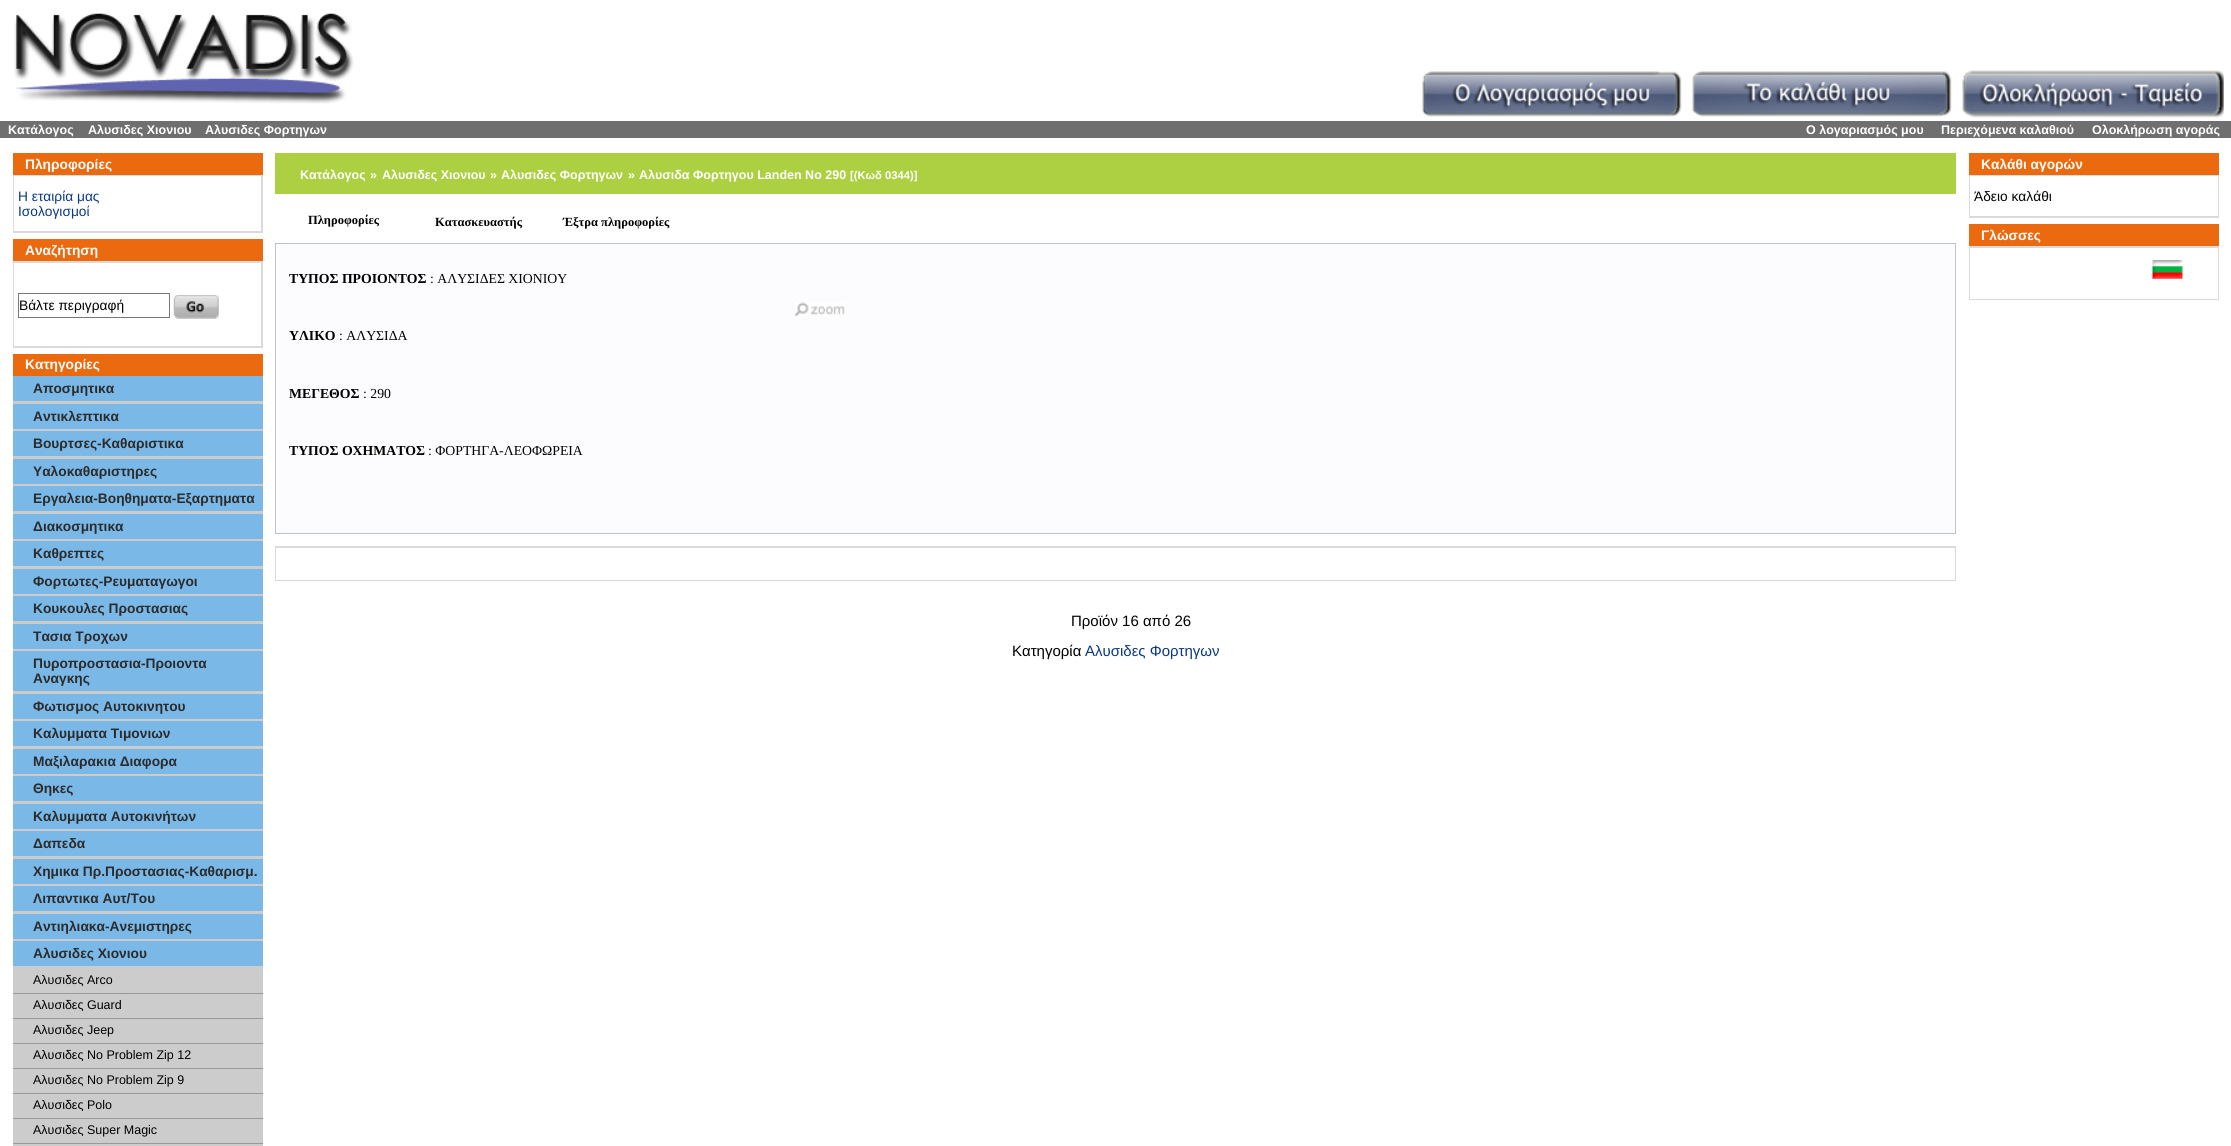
#include <cairo.h>
#include <math.h>
#include <stddef.h>

static cairo_t *ctx;

static void use_color(int r, int g, int b) {
    cairo_set_source_rgb(ctx, r / 255.0, g / 255.0, b / 255.0);
}

static void picture(const char *path, double x, double y, double w, double h) {
    cairo_surface_t *image = cairo_image_surface_create_from_png(path);
    cairo_save(ctx);
    cairo_set_source_surface(ctx, image, x, y);
    cairo_rectangle(ctx, x, y, w, h);
    cairo_fill(ctx);
    cairo_restore(ctx);
    cairo_surface_destroy(image);
}

int main(void) {
    cairo_surface_t *surface = cairo_image_surface_create(CAIRO_FORMAT_RGB24, 2231, 1146);
    ctx = cairo_create(surface);
    cairo_font_options_t *options = cairo_font_options_create();
    cairo_font_options_set_hint_metrics(options, CAIRO_HINT_METRICS_OFF);
    cairo_font_options_set_hint_style(options, CAIRO_HINT_STYLE_NONE);
    cairo_set_font_options(ctx, options);
    cairo_set_miter_limit(ctx, 4);
    use_color(255, 255, 255);
    cairo_paint(ctx);
    picture("img1.png", 14, 13, 340, 91);
    picture("img2.png", 1422, 71, 260, 46);
    picture("img3.png", 1692, 71, 260, 46);
    picture("img4.png", 1962, 70, 262, 48);
    use_color(111, 111, 111);
    cairo_rectangle(ctx, 0, 121, 2231, 17);
    cairo_fill(ctx);
    cairo_select_font_face(ctx, "Liberation Sans", CAIRO_FONT_SLANT_NORMAL, CAIRO_FONT_WEIGHT_BOLD);
    cairo_set_font_size(ctx, 12.5);
    use_color(255, 255, 255);
    cairo_move_to(ctx, 8, 134);
    cairo_show_text(ctx, "Κατάλογος");
    cairo_move_to(ctx, 88, 134);
    cairo_show_text(ctx, "Αλυσιδες Χιονιου");
    cairo_move_to(ctx, 205, 134);
    cairo_show_text(ctx, "Αλυσιδες Φορτηγων");
    cairo_move_to(ctx, 1806, 134);
    cairo_show_text(ctx, "Ο λογαριασμός μου");
    cairo_move_to(ctx, 1941, 134);
    cairo_show_text(ctx, "Περιεχόμενα καλαθιού");
    cairo_move_to(ctx, 2092, 134);
    cairo_show_text(ctx, "Ολοκλήρωση αγοράς");
    use_color(236, 106, 15);
    cairo_rectangle(ctx, 13, 153, 250, 22);
    cairo_fill(ctx);
    cairo_set_font_size(ctx, 13.75);
    use_color(255, 255, 255);
    cairo_move_to(ctx, 25, 169);
    cairo_show_text(ctx, "Πληροφορίες");
    use_color(218, 218, 219);
    cairo_rectangle(ctx, 13, 175, 250, 58);
    cairo_fill(ctx);
    use_color(255, 255, 255);
    cairo_rectangle(ctx, 14, 176, 247, 55);
    cairo_fill(ctx);
    cairo_select_font_face(ctx, "Liberation Sans", CAIRO_FONT_SLANT_NORMAL, CAIRO_FONT_WEIGHT_NORMAL);
    use_color(10, 56, 131);
    cairo_move_to(ctx, 18, 201);
    cairo_show_text(ctx, "H εταιρία μας");
    cairo_move_to(ctx, 18, 216);
    cairo_show_text(ctx, "Ισολογισμοί");
    use_color(236, 106, 15);
    cairo_rectangle(ctx, 13, 239, 250, 22);
    cairo_fill(ctx);
    cairo_select_font_face(ctx, "Liberation Sans", CAIRO_FONT_SLANT_NORMAL, CAIRO_FONT_WEIGHT_BOLD);
    use_color(255, 255, 255);
    cairo_move_to(ctx, 25, 255);
    cairo_show_text(ctx, "Αναζήτηση");
    use_color(218, 218, 219);
    cairo_rectangle(ctx, 13, 261, 250, 87);
    cairo_fill(ctx);
    use_color(255, 255, 255);
    cairo_rectangle(ctx, 14, 263, 247, 83);
    cairo_fill(ctx);
    cairo_rectangle(ctx, 18.5, 293.5, 151, 24);
    use_color(120, 120, 120);
    cairo_set_line_width(ctx, 1);
    cairo_stroke(ctx);
    cairo_select_font_face(ctx, "Liberation Sans", CAIRO_FONT_SLANT_NORMAL, CAIRO_FONT_WEIGHT_NORMAL);
    use_color(0, 0, 0);
    cairo_move_to(ctx, 19, 310);
    cairo_show_text(ctx, "Βάλτε περιγραφή");
    picture("img5.png", 173, 295, 46, 24);
    use_color(236, 106, 15);
    cairo_rectangle(ctx, 13, 354, 250, 22);
    cairo_fill(ctx);
    cairo_select_font_face(ctx, "Liberation Sans", CAIRO_FONT_SLANT_NORMAL, CAIRO_FONT_WEIGHT_BOLD);
    use_color(255, 255, 255);
    cairo_move_to(ctx, 25, 369);
    cairo_show_text(ctx, "Κατηγορίες");
    use_color(122, 184, 231);
    cairo_rectangle(ctx, 13, 376, 250, 25);
    cairo_fill(ctx);
    use_color(204, 204, 204);
    cairo_rectangle(ctx, 13, 401, 250, 3);
    cairo_fill(ctx);
    use_color(44, 43, 43);
    cairo_move_to(ctx, 33, 393);
    cairo_show_text(ctx, "Αποσμητικα");
    use_color(122, 184, 231);
    cairo_rectangle(ctx, 13, 404, 250, 25);
    cairo_fill(ctx);
    use_color(204, 204, 204);
    cairo_rectangle(ctx, 13, 429, 250, 2);
    cairo_fill(ctx);
    use_color(44, 43, 43);
    cairo_move_to(ctx, 33, 421);
    cairo_show_text(ctx, "Αντικλεπτικα");
    use_color(122, 184, 231);
    cairo_rectangle(ctx, 13, 431, 250, 25);
    cairo_fill(ctx);
    use_color(204, 204, 204);
    cairo_rectangle(ctx, 13, 456, 250, 3);
    cairo_fill(ctx);
    use_color(44, 43, 43);
    cairo_move_to(ctx, 33, 448);
    cairo_show_text(ctx, "Βουρτσες-Καθαριστικα");
    use_color(122, 184, 231);
    cairo_rectangle(ctx, 13, 459, 250, 25);
    cairo_fill(ctx);
    use_color(204, 204, 204);
    cairo_rectangle(ctx, 13, 484, 250, 2);
    cairo_fill(ctx);
    use_color(44, 43, 43);
    cairo_move_to(ctx, 33, 476);
    cairo_show_text(ctx, "Υαλοκαθαριστηρες");
    use_color(122, 184, 231);
    cairo_rectangle(ctx, 13, 486, 250, 25);
    cairo_fill(ctx);
    use_color(204, 204, 204);
    cairo_rectangle(ctx, 13, 511, 250, 3);
    cairo_fill(ctx);
    use_color(44, 43, 43);
    cairo_move_to(ctx, 33, 503);
    cairo_show_text(ctx, "Εργαλεια-Βοηθηματα-Εξαρτηματα");
    use_color(122, 184, 231);
    cairo_rectangle(ctx, 13, 514, 250, 25);
    cairo_fill(ctx);
    use_color(204, 204, 204);
    cairo_rectangle(ctx, 13, 539, 250, 2);
    cairo_fill(ctx);
    use_color(44, 43, 43);
    cairo_move_to(ctx, 33, 531);
    cairo_show_text(ctx, "Διακοσμητικα");
    use_color(122, 184, 231);
    cairo_rectangle(ctx, 13, 541, 250, 25);
    cairo_fill(ctx);
    use_color(204, 204, 204);
    cairo_rectangle(ctx, 13, 566, 250, 3);
    cairo_fill(ctx);
    use_color(44, 43, 43);
    cairo_move_to(ctx, 33, 558);
    cairo_show_text(ctx, "Καθρεπτες");
    use_color(122, 184, 231);
    cairo_rectangle(ctx, 13, 569, 250, 25);
    cairo_fill(ctx);
    use_color(204, 204, 204);
    cairo_rectangle(ctx, 13, 594, 250, 2);
    cairo_fill(ctx);
    use_color(44, 43, 43);
    cairo_move_to(ctx, 33, 586);
    cairo_show_text(ctx, "Φορτωτες-Ρευματαγωγοι");
    use_color(122, 184, 231);
    cairo_rectangle(ctx, 13, 596, 250, 25);
    cairo_fill(ctx);
    use_color(204, 204, 204);
    cairo_rectangle(ctx, 13, 621, 250, 3);
    cairo_fill(ctx);
    use_color(44, 43, 43);
    cairo_move_to(ctx, 33, 613);
    cairo_show_text(ctx, "Κουκουλες Προστασιας");
    use_color(122, 184, 231);
    cairo_rectangle(ctx, 13, 624, 250, 25);
    cairo_fill(ctx);
    use_color(204, 204, 204);
    cairo_rectangle(ctx, 13, 649, 250, 2);
    cairo_fill(ctx);
    use_color(44, 43, 43);
    cairo_move_to(ctx, 33, 641);
    cairo_show_text(ctx, "Τασια Τροχων");
    use_color(122, 184, 231);
    cairo_rectangle(ctx, 13, 651, 250, 40);
    cairo_fill(ctx);
    use_color(204, 204, 204);
    cairo_rectangle(ctx, 13, 691, 250, 3);
    cairo_fill(ctx);
    use_color(44, 43, 43);
    cairo_move_to(ctx, 33, 668);
    cairo_show_text(ctx, "Πυροπροστασια-Προιοντα");
    cairo_move_to(ctx, 33, 683);
    cairo_show_text(ctx, "Αναγκης");
    use_color(122, 184, 231);
    cairo_rectangle(ctx, 13, 694, 250, 25);
    cairo_fill(ctx);
    use_color(204, 204, 204);
    cairo_rectangle(ctx, 13, 719, 250, 2);
    cairo_fill(ctx);
    use_color(44, 43, 43);
    cairo_move_to(ctx, 33, 711);
    cairo_show_text(ctx, "Φωτισμος Αυτοκινητου");
    use_color(122, 184, 231);
    cairo_rectangle(ctx, 13, 721, 250, 25);
    cairo_fill(ctx);
    use_color(204, 204, 204);
    cairo_rectangle(ctx, 13, 746, 250, 3);
    cairo_fill(ctx);
    use_color(44, 43, 43);
    cairo_move_to(ctx, 33, 738);
    cairo_show_text(ctx, "Καλυμματα Τιμονιων");
    use_color(122, 184, 231);
    cairo_rectangle(ctx, 13, 749, 250, 25);
    cairo_fill(ctx);
    use_color(204, 204, 204);
    cairo_rectangle(ctx, 13, 774, 250, 2);
    cairo_fill(ctx);
    use_color(44, 43, 43);
    cairo_move_to(ctx, 33, 766);
    cairo_show_text(ctx, "Μαξιλαρακια Διαφορα");
    use_color(122, 184, 231);
    cairo_rectangle(ctx, 13, 776, 250, 25);
    cairo_fill(ctx);
    use_color(204, 204, 204);
    cairo_rectangle(ctx, 13, 801, 250, 3);
    cairo_fill(ctx);
    use_color(44, 43, 43);
    cairo_move_to(ctx, 33, 793);
    cairo_show_text(ctx, "Θηκες");
    use_color(122, 184, 231);
    cairo_rectangle(ctx, 13, 804, 250, 25);
    cairo_fill(ctx);
    use_color(204, 204, 204);
    cairo_rectangle(ctx, 13, 829, 250, 2);
    cairo_fill(ctx);
    use_color(44, 43, 43);
    cairo_move_to(ctx, 33, 821);
    cairo_show_text(ctx, "Καλυμματα Αυτοκινήτων");
    use_color(122, 184, 231);
    cairo_rectangle(ctx, 13, 831, 250, 25);
    cairo_fill(ctx);
    use_color(204, 204, 204);
    cairo_rectangle(ctx, 13, 856, 250, 3);
    cairo_fill(ctx);
    use_color(44, 43, 43);
    cairo_move_to(ctx, 33, 848);
    cairo_show_text(ctx, "Δαπεδα");
    use_color(122, 184, 231);
    cairo_rectangle(ctx, 13, 859, 250, 25);
    cairo_fill(ctx);
    use_color(204, 204, 204);
    cairo_rectangle(ctx, 13, 884, 250, 2);
    cairo_fill(ctx);
    use_color(44, 43, 43);
    cairo_move_to(ctx, 33, 876);
    cairo_show_text(ctx, "Χημικα Πρ.Προστασιας-Καθαρισμ.");
    use_color(122, 184, 231);
    cairo_rectangle(ctx, 13, 886, 250, 25);
    cairo_fill(ctx);
    use_color(204, 204, 204);
    cairo_rectangle(ctx, 13, 911, 250, 3);
    cairo_fill(ctx);
    use_color(44, 43, 43);
    cairo_move_to(ctx, 33, 903);
    cairo_show_text(ctx, "Λιπαντικα Αυτ/Του");
    use_color(122, 184, 231);
    cairo_rectangle(ctx, 13, 914, 250, 25);
    cairo_fill(ctx);
    use_color(204, 204, 204);
    cairo_rectangle(ctx, 13, 939, 250, 2);
    cairo_fill(ctx);
    use_color(44, 43, 43);
    cairo_move_to(ctx, 33, 931);
    cairo_show_text(ctx, "Αντιηλιακα-Ανεμιστηρες");
    use_color(122, 184, 231);
    cairo_rectangle(ctx, 13, 941, 250, 25);
    cairo_fill(ctx);
    use_color(204, 204, 204);
    cairo_rectangle(ctx, 13, 966, 250, 27);
    cairo_fill(ctx);
    use_color(44, 43, 43);
    cairo_move_to(ctx, 33, 958);
    cairo_show_text(ctx, "Αλυσιδες Χιονιου");
    use_color(153, 153, 153);
    cairo_rectangle(ctx, 13, 993, 250, 1);
    cairo_fill(ctx);
    cairo_select_font_face(ctx, "Liberation Sans", CAIRO_FONT_SLANT_NORMAL, CAIRO_FONT_WEIGHT_NORMAL);
    cairo_set_font_size(ctx, 12.5);
    use_color(0, 0, 0);
    cairo_move_to(ctx, 33, 984);
    cairo_show_text(ctx, "Αλυσιδες Arco");
    use_color(204, 204, 204);
    cairo_rectangle(ctx, 13, 994, 250, 24);
    cairo_fill(ctx);
    use_color(153, 153, 153);
    cairo_rectangle(ctx, 13, 1018, 250, 1);
    cairo_fill(ctx);
    use_color(0, 0, 0);
    cairo_move_to(ctx, 33, 1009);
    cairo_show_text(ctx, "Αλυσιδες Guard");
    use_color(204, 204, 204);
    cairo_rectangle(ctx, 13, 1019, 250, 24);
    cairo_fill(ctx);
    use_color(153, 153, 153);
    cairo_rectangle(ctx, 13, 1043, 250, 1);
    cairo_fill(ctx);
    use_color(0, 0, 0);
    cairo_move_to(ctx, 33, 1034);
    cairo_show_text(ctx, "Αλυσιδες Jeep");
    use_color(204, 204, 204);
    cairo_rectangle(ctx, 13, 1044, 250, 24);
    cairo_fill(ctx);
    use_color(153, 153, 153);
    cairo_rectangle(ctx, 13, 1068, 250, 1);
    cairo_fill(ctx);
    use_color(0, 0, 0);
    cairo_move_to(ctx, 33, 1059);
    cairo_show_text(ctx, "Αλυσιδες No Problem Zip 12");
    use_color(204, 204, 204);
    cairo_rectangle(ctx, 13, 1069, 250, 24);
    cairo_fill(ctx);
    use_color(153, 153, 153);
    cairo_rectangle(ctx, 13, 1093, 250, 1);
    cairo_fill(ctx);
    use_color(0, 0, 0);
    cairo_move_to(ctx, 33, 1084);
    cairo_show_text(ctx, "Αλυσιδες No Problem Zip 9");
    use_color(204, 204, 204);
    cairo_rectangle(ctx, 13, 1094, 250, 24);
    cairo_fill(ctx);
    use_color(153, 153, 153);
    cairo_rectangle(ctx, 13, 1118, 250, 1);
    cairo_fill(ctx);
    use_color(0, 0, 0);
    cairo_move_to(ctx, 33, 1109);
    cairo_show_text(ctx, "Αλυσιδες Polo");
    use_color(204, 204, 204);
    cairo_rectangle(ctx, 13, 1119, 250, 24);
    cairo_fill(ctx);
    use_color(153, 153, 153);
    cairo_rectangle(ctx, 13, 1143, 250, 1);
    cairo_fill(ctx);
    use_color(0, 0, 0);
    cairo_move_to(ctx, 33, 1134);
    cairo_show_text(ctx, "Αλυσιδες Super Magic");
    use_color(204, 204, 204);
    cairo_rectangle(ctx, 13, 1144, 250, 2);
    cairo_fill(ctx);
    use_color(173, 208, 66);
    cairo_rectangle(ctx, 275, 153, 1681, 41);
    cairo_fill(ctx);
    cairo_select_font_face(ctx, "Liberation Sans", CAIRO_FONT_SLANT_NORMAL, CAIRO_FONT_WEIGHT_BOLD);
    use_color(255, 255, 255);
    cairo_move_to(ctx, 300, 179);
    cairo_show_text(ctx, "Κατάλογος");
    cairo_move_to(ctx, 370, 179);
    cairo_show_text(ctx, "»");
    cairo_move_to(ctx, 382, 179);
    cairo_show_text(ctx, "Αλυσιδες Χιονιου");
    cairo_move_to(ctx, 490, 179);
    cairo_show_text(ctx, "»");
    cairo_move_to(ctx, 501, 179);
    cairo_show_text(ctx, "Αλυσιδες Φορτηγων");
    cairo_move_to(ctx, 628, 179);
    cairo_show_text(ctx, "»");
    cairo_move_to(ctx, 639, 179);
    cairo_show_text(ctx, "Αλυσιδα Φορτηγου Landen Νο 290");
    cairo_set_font_size(ctx, 11.25);
    cairo_move_to(ctx, 850, 179);
    cairo_show_text(ctx, "[(Κωδ 0344)]");
    cairo_select_font_face(ctx, "Liberation Serif", CAIRO_FONT_SLANT_NORMAL, CAIRO_FONT_WEIGHT_BOLD);
    cairo_set_font_size(ctx, 12.5);
    use_color(0, 0, 0);
    cairo_move_to(ctx, 308, 224);
    cairo_show_text(ctx, "Πληροφορίες");
    cairo_move_to(ctx, 435, 226);
    cairo_show_text(ctx, "Κατασκευαστής");
    cairo_move_to(ctx, 563, 226);
    cairo_show_text(ctx, "Έξτρα πληροφορίες");
    use_color(252, 252, 254);
    cairo_rectangle(ctx, 275.5, 243.5, 1680, 290);
    cairo_fill_preserve(ctx);
    use_color(187, 195, 211);
    cairo_stroke(ctx);
    cairo_set_font_size(ctx, 13.75);
    use_color(0, 0, 0);
    cairo_move_to(ctx, 289, 283);
    cairo_show_text(ctx, "ΤΥΠΟΣ ΠΡΟΙΟΝΤΟΣ");
    cairo_select_font_face(ctx, "Liberation Serif", CAIRO_FONT_SLANT_NORMAL, CAIRO_FONT_WEIGHT_NORMAL);
    cairo_move_to(ctx, 430, 283);
    cairo_show_text(ctx, ": ΑΛΥΣΙΔΕΣ ΧΙΟΝΙΟΥ");
    cairo_select_font_face(ctx, "Liberation Serif", CAIRO_FONT_SLANT_NORMAL, CAIRO_FONT_WEIGHT_BOLD);
    cairo_move_to(ctx, 289, 340);
    cairo_show_text(ctx, "ΥΛΙΚΟ");
    cairo_select_font_face(ctx, "Liberation Serif", CAIRO_FONT_SLANT_NORMAL, CAIRO_FONT_WEIGHT_NORMAL);
    cairo_move_to(ctx, 339, 340);
    cairo_show_text(ctx, ": ΑΛΥΣΙΔΑ");
    cairo_select_font_face(ctx, "Liberation Serif", CAIRO_FONT_SLANT_NORMAL, CAIRO_FONT_WEIGHT_BOLD);
    cairo_move_to(ctx, 289, 398);
    cairo_show_text(ctx, "ΜΕΓΕΘΟΣ");
    cairo_select_font_face(ctx, "Liberation Serif", CAIRO_FONT_SLANT_NORMAL, CAIRO_FONT_WEIGHT_NORMAL);
    cairo_move_to(ctx, 363, 398);
    cairo_show_text(ctx, ": 290");
    cairo_select_font_face(ctx, "Liberation Serif", CAIRO_FONT_SLANT_NORMAL, CAIRO_FONT_WEIGHT_BOLD);
    cairo_move_to(ctx, 289, 455);
    cairo_show_text(ctx, "ΤΥΠΟΣ ΟΧΗΜΑΤΟΣ");
    cairo_select_font_face(ctx, "Liberation Serif", CAIRO_FONT_SLANT_NORMAL, CAIRO_FONT_WEIGHT_NORMAL);
    cairo_move_to(ctx, 428, 455);
    cairo_show_text(ctx, ": ΦΟΡΤΗΓΑ-ΛΕΟΦΩΡΕIA");
    picture("img6.png", 795, 302, 50, 15);
    use_color(218, 218, 219);
    cairo_rectangle(ctx, 275, 546, 1681, 35);
    cairo_fill(ctx);
    use_color(255, 255, 255);
    cairo_rectangle(ctx, 276, 548, 1679, 32);
    cairo_fill(ctx);
    cairo_select_font_face(ctx, "Liberation Sans", CAIRO_FONT_SLANT_NORMAL, CAIRO_FONT_WEIGHT_NORMAL);
    cairo_set_font_size(ctx, 15);
    use_color(0, 0, 0);
    cairo_move_to(ctx, 1071, 626);
    cairo_show_text(ctx, "Προϊόν 16 από 26");
    cairo_move_to(ctx, 1012, 656);
    cairo_show_text(ctx, "Κατηγορία");
    use_color(10, 56, 131);
    cairo_move_to(ctx, 1085, 656);
    cairo_show_text(ctx, "Αλυσιδες Φορτηγων");
    use_color(236, 106, 15);
    cairo_rectangle(ctx, 1969, 153, 250, 22);
    cairo_fill(ctx);
    cairo_select_font_face(ctx, "Liberation Sans", CAIRO_FONT_SLANT_NORMAL, CAIRO_FONT_WEIGHT_BOLD);
    cairo_set_font_size(ctx, 13.75);
    use_color(255, 255, 255);
    cairo_move_to(ctx, 1981, 169);
    cairo_show_text(ctx, "Καλάθι αγορών");
    use_color(218, 218, 219);
    cairo_rectangle(ctx, 1969, 175, 250, 43);
    cairo_fill(ctx);
    use_color(255, 255, 255);
    cairo_rectangle(ctx, 1970, 176, 248, 40);
    cairo_fill(ctx);
    cairo_select_font_face(ctx, "Liberation Sans", CAIRO_FONT_SLANT_NORMAL, CAIRO_FONT_WEIGHT_NORMAL);
    use_color(0, 0, 0);
    cairo_move_to(ctx, 1974, 201);
    cairo_show_text(ctx, "Άδειο καλάθι");
    use_color(236, 106, 15);
    cairo_rectangle(ctx, 1969, 224, 250, 22);
    cairo_fill(ctx);
    cairo_select_font_face(ctx, "Liberation Sans", CAIRO_FONT_SLANT_NORMAL, CAIRO_FONT_WEIGHT_BOLD);
    use_color(255, 255, 255);
    cairo_move_to(ctx, 1981, 240);
    cairo_show_text(ctx, "Γλώσσες");
    use_color(218, 218, 219);
    cairo_rectangle(ctx, 1969, 246, 250, 54);
    cairo_fill(ctx);
    use_color(255, 255, 255);
    cairo_rectangle(ctx, 1970, 248, 248, 51);
    cairo_fill(ctx);
    picture("img7.png", 2152, 260, 31, 19);
    cairo_surface_write_to_png(surface, "result.png");
    cairo_font_options_destroy(options);
    cairo_destroy(ctx);
    cairo_surface_destroy(surface);
    return 0;
}
